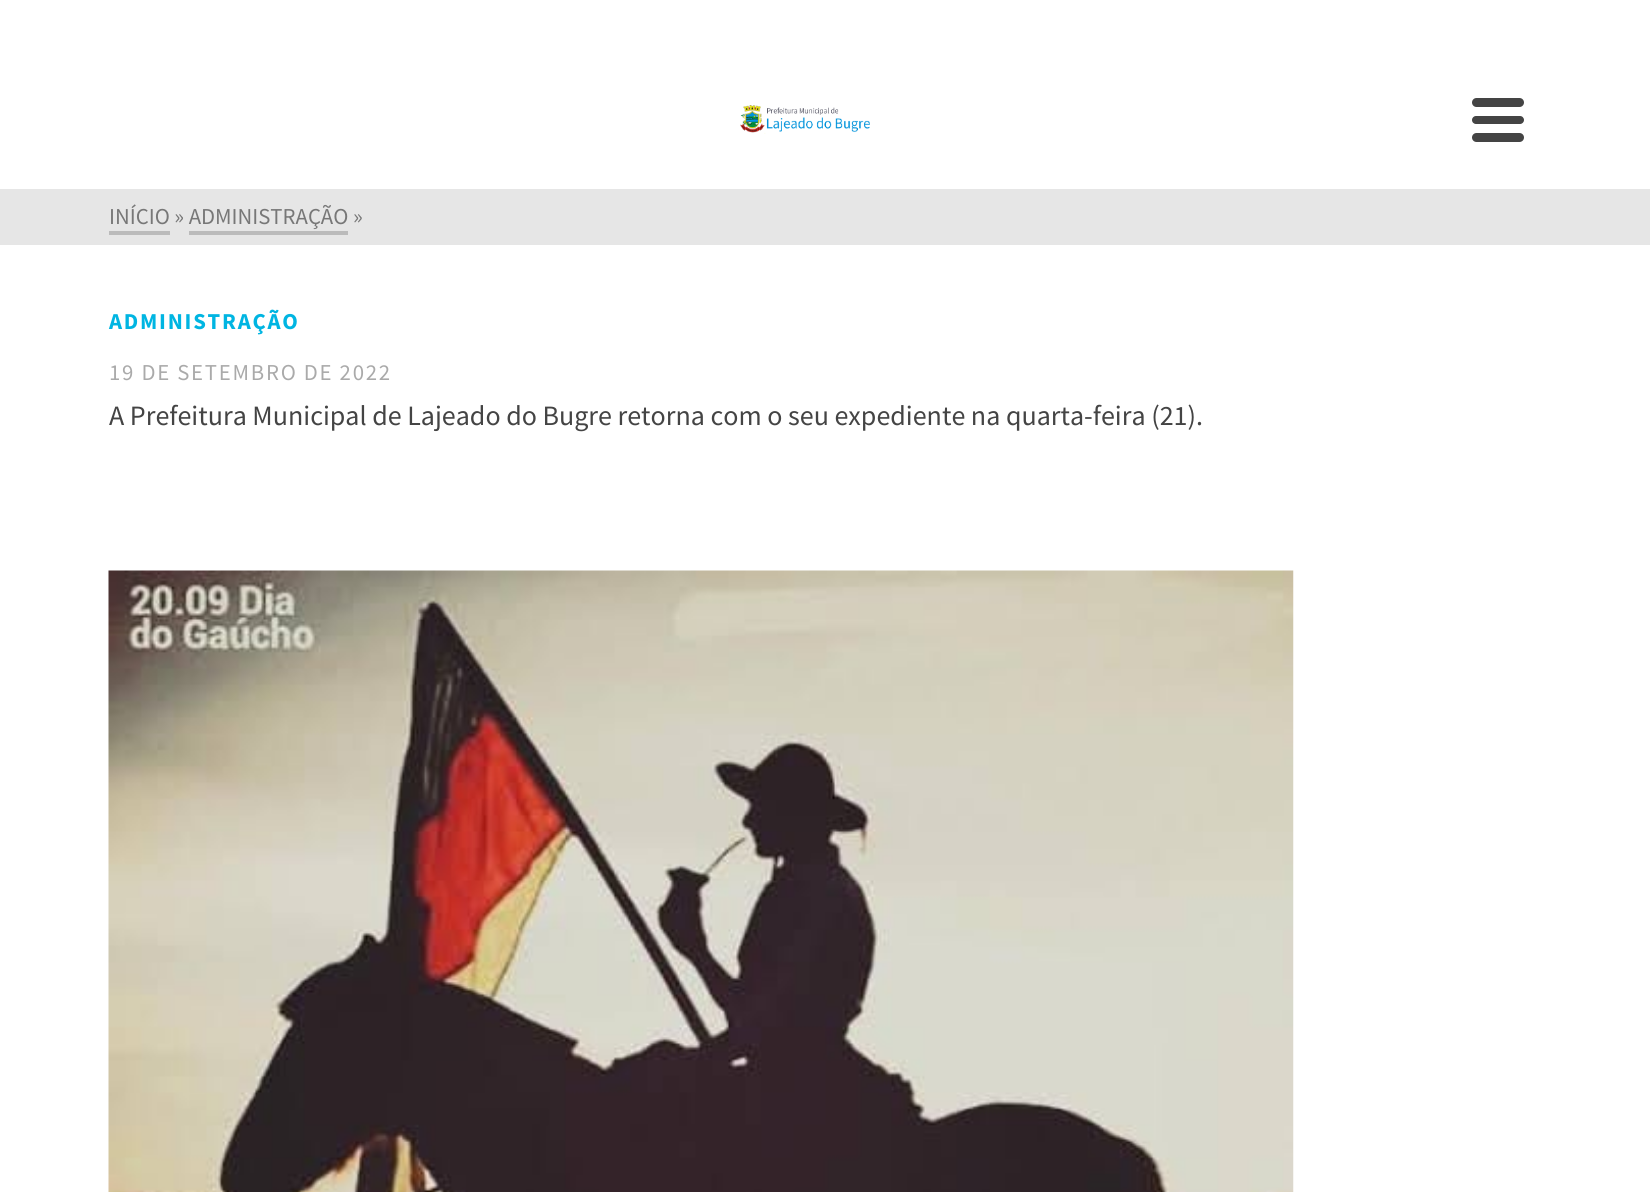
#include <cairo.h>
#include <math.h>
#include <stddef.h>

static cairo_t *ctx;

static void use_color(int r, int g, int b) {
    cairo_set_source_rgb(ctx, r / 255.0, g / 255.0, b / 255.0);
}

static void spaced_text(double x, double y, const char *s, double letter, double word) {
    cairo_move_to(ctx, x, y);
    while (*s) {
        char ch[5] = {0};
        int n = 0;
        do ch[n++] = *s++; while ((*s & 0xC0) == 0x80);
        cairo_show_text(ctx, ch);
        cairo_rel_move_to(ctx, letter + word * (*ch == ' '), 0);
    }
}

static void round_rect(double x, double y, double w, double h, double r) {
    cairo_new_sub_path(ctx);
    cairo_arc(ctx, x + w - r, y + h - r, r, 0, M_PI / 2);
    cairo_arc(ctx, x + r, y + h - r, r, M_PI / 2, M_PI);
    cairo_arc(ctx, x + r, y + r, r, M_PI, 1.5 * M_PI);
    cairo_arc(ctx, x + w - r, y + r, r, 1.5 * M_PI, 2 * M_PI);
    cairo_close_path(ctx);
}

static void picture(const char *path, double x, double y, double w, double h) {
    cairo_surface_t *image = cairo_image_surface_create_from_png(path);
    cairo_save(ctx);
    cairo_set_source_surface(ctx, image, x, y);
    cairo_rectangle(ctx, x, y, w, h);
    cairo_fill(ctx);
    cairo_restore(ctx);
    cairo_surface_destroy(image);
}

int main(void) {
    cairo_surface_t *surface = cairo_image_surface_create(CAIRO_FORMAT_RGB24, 1650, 1192);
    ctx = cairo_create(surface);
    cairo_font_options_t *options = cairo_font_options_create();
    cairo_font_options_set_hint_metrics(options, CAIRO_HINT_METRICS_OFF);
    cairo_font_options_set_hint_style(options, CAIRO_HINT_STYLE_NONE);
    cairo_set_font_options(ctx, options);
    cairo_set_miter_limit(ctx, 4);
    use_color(255, 255, 255);
    cairo_paint(ctx);
    picture("img1.png", 740, 105, 130, 29);
    use_color(68, 68, 68);
    round_rect(1472, 98, 52, 9, 4.5);
    cairo_fill(ctx);
    round_rect(1472, 116, 52, 8, 4);
    cairo_fill(ctx);
    round_rect(1472, 133, 52, 9, 4.5);
    cairo_fill(ctx);
    use_color(230, 230, 230);
    cairo_rectangle(ctx, 0, 189, 1650, 56);
    cairo_fill(ctx);
    cairo_select_font_face(ctx, "Source Sans Pro", CAIRO_FONT_SLANT_NORMAL, CAIRO_FONT_WEIGHT_NORMAL);
    cairo_set_font_size(ctx, 22.75);
    use_color(119, 119, 119);
    cairo_move_to(ctx, 109, 224);
    cairo_show_text(ctx, "INÍCIO » ADMINISTRAÇÃO »");
    use_color(187, 187, 187);
    cairo_rectangle(ctx, 109, 231, 61, 4);
    cairo_fill(ctx);
    cairo_rectangle(ctx, 189, 231, 159, 4);
    cairo_fill(ctx);
    cairo_select_font_face(ctx, "Source Sans Pro", CAIRO_FONT_SLANT_NORMAL, CAIRO_FONT_WEIGHT_BOLD);
    use_color(0, 181, 226);
    spaced_text(109, 329, "ADMINISTRAÇÃO", 1.75, 0);
    cairo_select_font_face(ctx, "Source Sans Pro", CAIRO_FONT_SLANT_NORMAL, CAIRO_FONT_WEIGHT_NORMAL);
    use_color(170, 170, 170);
    spaced_text(109, 380, "19 DE SETEMBRO DE 2022", 1.75, 0);
    cairo_set_font_size(ctx, 28);
    use_color(68, 68, 68);
    cairo_move_to(ctx, 109, 425);
    cairo_show_text(ctx, "A Prefeitura Municipal de Lajeado do Bugre retorna com o seu expediente na quarta-feira (21).");
    picture("img2.png", 108, 570, 1186, 622);
    cairo_surface_write_to_png(surface, "result.png");
    cairo_font_options_destroy(options);
    cairo_destroy(ctx);
    cairo_surface_destroy(surface);
    return 0;
}
